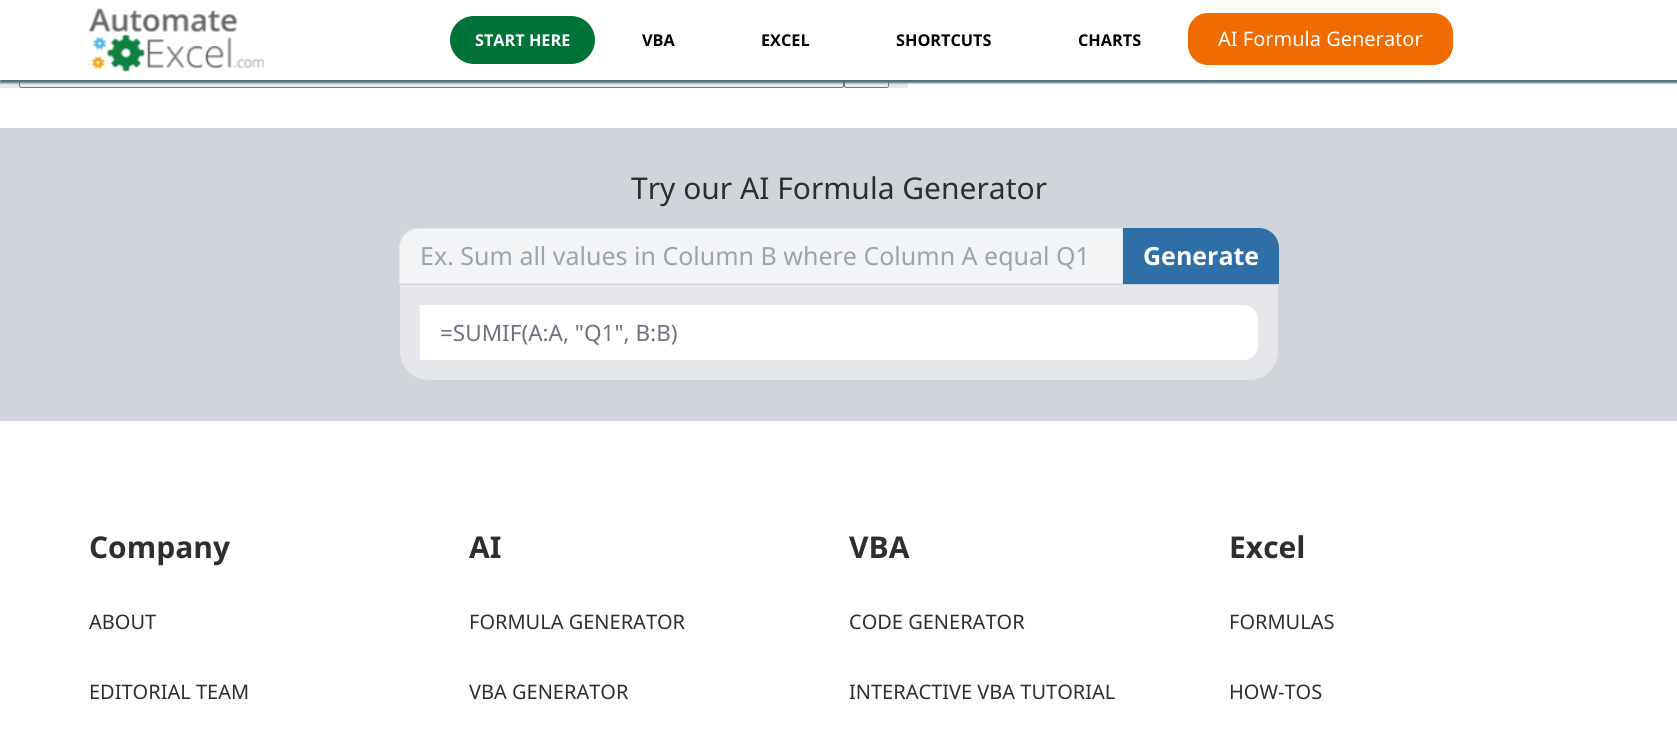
#include <cairo.h>
#include <math.h>
#include <stddef.h>

static cairo_t *ctx;

static void use_color(int r, int g, int b) {
    cairo_set_source_rgb(ctx, r / 255.0, g / 255.0, b / 255.0);
}

static void round_rect(double x, double y, double w, double h, double r) {
    cairo_new_sub_path(ctx);
    cairo_arc(ctx, x + w - r, y + h - r, r, 0, M_PI / 2);
    cairo_arc(ctx, x + r, y + h - r, r, M_PI / 2, M_PI);
    cairo_arc(ctx, x + r, y + r, r, M_PI, 1.5 * M_PI);
    cairo_arc(ctx, x + w - r, y + r, r, 1.5 * M_PI, 2 * M_PI);
    cairo_close_path(ctx);
}

static void shadow(double x, double y, double w, double h, double r, double blur, double alpha) {
    cairo_push_group_with_content(ctx, CAIRO_CONTENT_ALPHA);
    cairo_set_operator(ctx, CAIRO_OPERATOR_SOURCE);
    for (int i = 15; i >= -15 && fmin(w, h) + blur * i / 3 > 0; i -= 2) {
        double e = blur * i / 6;
        cairo_set_source_rgba(ctx, 0, 0, 0, alpha * erfc((i - 1) / 8.5) / 2);
        round_rect(x - e, y - e, w + 2 * e, h + 2 * e, fmax(0, fmin(r + e + blur * .6, fmin(w, h) / 2 + e)));
        cairo_fill(ctx);
    }
    cairo_pattern_t *soft = cairo_pop_group(ctx);
    cairo_mask(ctx, soft);
    cairo_pattern_destroy(soft);
}

static void picture(const char *path, double x, double y, double w, double h) {
    cairo_surface_t *image = cairo_image_surface_create_from_png(path);
    cairo_save(ctx);
    cairo_set_source_surface(ctx, image, x, y);
    cairo_rectangle(ctx, x, y, w, h);
    cairo_fill(ctx);
    cairo_restore(ctx);
    cairo_surface_destroy(image);
}

int main(void) {
    cairo_surface_t *surface = cairo_image_surface_create(CAIRO_FORMAT_RGB24, 1677, 749);
    ctx = cairo_create(surface);
    cairo_font_options_t *options = cairo_font_options_create();
    cairo_font_options_set_hint_metrics(options, CAIRO_HINT_METRICS_OFF);
    cairo_font_options_set_hint_style(options, CAIRO_HINT_STYLE_NONE);
    cairo_set_font_options(ctx, options);
    cairo_set_miter_limit(ctx, 4);
    use_color(255, 255, 255);
    cairo_paint(ctx);
    use_color(233, 233, 233);
    cairo_rectangle(ctx, 0, 80, 908, 8);
    cairo_fill(ctx);
    use_color(239, 239, 239);
    round_rect(19.5, 46.5, 824, 41, 2);
    cairo_fill_preserve(ctx);
    use_color(118, 118, 118);
    cairo_set_line_width(ctx, 1);
    cairo_stroke(ctx);
    use_color(239, 239, 239);
    round_rect(844.5, 46.5, 44, 41, 2);
    cairo_fill_preserve(ctx);
    use_color(118, 118, 118);
    cairo_stroke(ctx);
    use_color(255, 255, 255);
    cairo_rectangle(ctx, 19, 46, 870, 34);
    cairo_fill(ctx);
    cairo_save(ctx);
    cairo_rectangle(ctx, 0, 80, 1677, 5);
    cairo_clip(ctx);
    use_color(79, 109, 122);
    shadow(0, 3, 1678, 80, 0, 1, 1);
    cairo_restore(ctx);
    picture("img1.png", 88, 8, 176, 65);
    use_color(2, 114, 59);
    round_rect(450, 16, 145, 48, 24);
    cairo_fill(ctx);
    cairo_select_font_face(ctx, "Noto Sans", CAIRO_FONT_SLANT_NORMAL, CAIRO_FONT_WEIGHT_BOLD);
    cairo_set_font_size(ctx, 16.25);
    use_color(255, 255, 255);
    cairo_move_to(ctx, 475, 46);
    cairo_show_text(ctx, "START HERE");
    use_color(0, 0, 0);
    cairo_move_to(ctx, 642, 46);
    cairo_show_text(ctx, "VBA");
    cairo_move_to(ctx, 761, 46);
    cairo_show_text(ctx, "EXCEL");
    cairo_move_to(ctx, 896, 46);
    cairo_show_text(ctx, "SHORTCUTS");
    cairo_move_to(ctx, 1078, 46);
    cairo_show_text(ctx, "CHARTS");
    use_color(240, 107, 0);
    round_rect(1188, 13, 265, 52, 20);
    cairo_fill(ctx);
    cairo_select_font_face(ctx, "Noto Sans", CAIRO_FONT_SLANT_NORMAL, CAIRO_FONT_WEIGHT_NORMAL);
    cairo_set_font_size(ctx, 20);
    use_color(255, 255, 255);
    cairo_move_to(ctx, 1218, 46);
    cairo_show_text(ctx, "AI Formula Generator");
    use_color(209, 213, 219);
    cairo_rectangle(ctx, 0, 128, 1677, 293);
    cairo_fill(ctx);
    cairo_set_font_size(ctx, 30);
    use_color(46, 46, 46);
    cairo_move_to(ctx, 631, 199);
    cairo_show_text(ctx, "Try our AI Formula Generator");
    use_color(243, 244, 246);
    cairo_new_path(ctx);
    cairo_move_to(ctx, 419, 228.5);
    cairo_line_to(ctx, 1122.5, 228.5);
    cairo_line_to(ctx, 1122.5, 283.5);
    cairo_line_to(ctx, 399.5, 283.5);
    cairo_line_to(ctx, 399.5, 248);
    cairo_curve_to(ctx, 399.5, 237, 408, 228.5, 419, 228.5);
    cairo_close_path(ctx);
    cairo_fill_preserve(ctx);
    use_color(229, 231, 235);
    cairo_stroke(ctx);
    cairo_set_font_size(ctx, 25);
    use_color(156, 163, 175);
    cairo_move_to(ctx, 420, 265);
    cairo_show_text(ctx, "Ex. Sum all values in Column B where Column A equal Q1");
    use_color(47, 111, 167);
    cairo_new_path(ctx);
    cairo_move_to(ctx, 1123, 228);
    cairo_line_to(ctx, 1259, 228);
    cairo_curve_to(ctx, 1270, 228, 1279, 237, 1279, 248);
    cairo_line_to(ctx, 1279, 284);
    cairo_line_to(ctx, 1123, 284);
    cairo_close_path(ctx);
    cairo_fill(ctx);
    cairo_select_font_face(ctx, "Noto Sans", CAIRO_FONT_SLANT_NORMAL, CAIRO_FONT_WEIGHT_BOLD);
    use_color(255, 255, 255);
    cairo_move_to(ctx, 1143, 265);
    cairo_show_text(ctx, "Generate");
    use_color(229, 231, 235);
    cairo_new_path(ctx);
    cairo_move_to(ctx, 399.5, 284.5);
    cairo_line_to(ctx, 1278.5, 284.5);
    cairo_line_to(ctx, 1278.5, 351);
    cairo_curve_to(ctx, 1278.5, 367.5, 1265.5, 380.5, 1249, 380.5);
    cairo_line_to(ctx, 429, 380.5);
    cairo_curve_to(ctx, 412.5, 380.5, 399.5, 367.5, 399.5, 351);
    cairo_close_path(ctx);
    cairo_fill_preserve(ctx);
    use_color(209, 213, 219);
    cairo_stroke(ctx);
    use_color(255, 255, 255);
    cairo_new_path(ctx);
    cairo_move_to(ctx, 420, 305);
    cairo_line_to(ctx, 1243, 305);
    cairo_curve_to(ctx, 1251.5, 305, 1258, 311.5, 1258, 320);
    cairo_line_to(ctx, 1258, 345);
    cairo_curve_to(ctx, 1258, 353.5, 1251.5, 360, 1243, 360);
    cairo_line_to(ctx, 420, 360);
    cairo_close_path(ctx);
    cairo_fill(ctx);
    cairo_select_font_face(ctx, "Noto Sans", CAIRO_FONT_SLANT_NORMAL, CAIRO_FONT_WEIGHT_NORMAL);
    cairo_set_font_size(ctx, 22.5);
    use_color(107, 114, 128);
    cairo_move_to(ctx, 440, 341);
    cairo_show_text(ctx, "=SUMIF(A:A, \"Q1\", B:B)");
    cairo_select_font_face(ctx, "Noto Sans", CAIRO_FONT_SLANT_NORMAL, CAIRO_FONT_WEIGHT_BOLD);
    cairo_set_font_size(ctx, 30);
    use_color(46, 46, 46);
    cairo_move_to(ctx, 89, 558);
    cairo_show_text(ctx, "Company");
    cairo_select_font_face(ctx, "Noto Sans", CAIRO_FONT_SLANT_NORMAL, CAIRO_FONT_WEIGHT_NORMAL);
    cairo_set_font_size(ctx, 20);
    cairo_move_to(ctx, 89, 629);
    cairo_show_text(ctx, "ABOUT");
    cairo_move_to(ctx, 89, 699);
    cairo_show_text(ctx, "EDITORIAL TEAM");
    cairo_select_font_face(ctx, "Noto Sans", CAIRO_FONT_SLANT_NORMAL, CAIRO_FONT_WEIGHT_BOLD);
    cairo_set_font_size(ctx, 30);
    cairo_move_to(ctx, 469, 558);
    cairo_show_text(ctx, "AI");
    cairo_select_font_face(ctx, "Noto Sans", CAIRO_FONT_SLANT_NORMAL, CAIRO_FONT_WEIGHT_NORMAL);
    cairo_set_font_size(ctx, 20);
    cairo_move_to(ctx, 469, 629);
    cairo_show_text(ctx, "FORMULA GENERATOR");
    cairo_move_to(ctx, 469, 699);
    cairo_show_text(ctx, "VBA GENERATOR");
    cairo_select_font_face(ctx, "Noto Sans", CAIRO_FONT_SLANT_NORMAL, CAIRO_FONT_WEIGHT_BOLD);
    cairo_set_font_size(ctx, 30);
    cairo_move_to(ctx, 849, 558);
    cairo_show_text(ctx, "VBA");
    cairo_select_font_face(ctx, "Noto Sans", CAIRO_FONT_SLANT_NORMAL, CAIRO_FONT_WEIGHT_NORMAL);
    cairo_set_font_size(ctx, 20);
    cairo_move_to(ctx, 849, 629);
    cairo_show_text(ctx, "CODE GENERATOR");
    cairo_move_to(ctx, 849, 699);
    cairo_show_text(ctx, "INTERACTIVE VBA TUTORIAL");
    cairo_select_font_face(ctx, "Noto Sans", CAIRO_FONT_SLANT_NORMAL, CAIRO_FONT_WEIGHT_BOLD);
    cairo_set_font_size(ctx, 30);
    cairo_move_to(ctx, 1229, 558);
    cairo_show_text(ctx, "Excel");
    cairo_select_font_face(ctx, "Noto Sans", CAIRO_FONT_SLANT_NORMAL, CAIRO_FONT_WEIGHT_NORMAL);
    cairo_set_font_size(ctx, 20);
    cairo_move_to(ctx, 1229, 629);
    cairo_show_text(ctx, "FORMULAS");
    cairo_move_to(ctx, 1229, 699);
    cairo_show_text(ctx, "HOW-TOS");
    cairo_surface_write_to_png(surface, "result.png");
    cairo_font_options_destroy(options);
    cairo_destroy(ctx);
    cairo_surface_destroy(surface);
    return 0;
}
